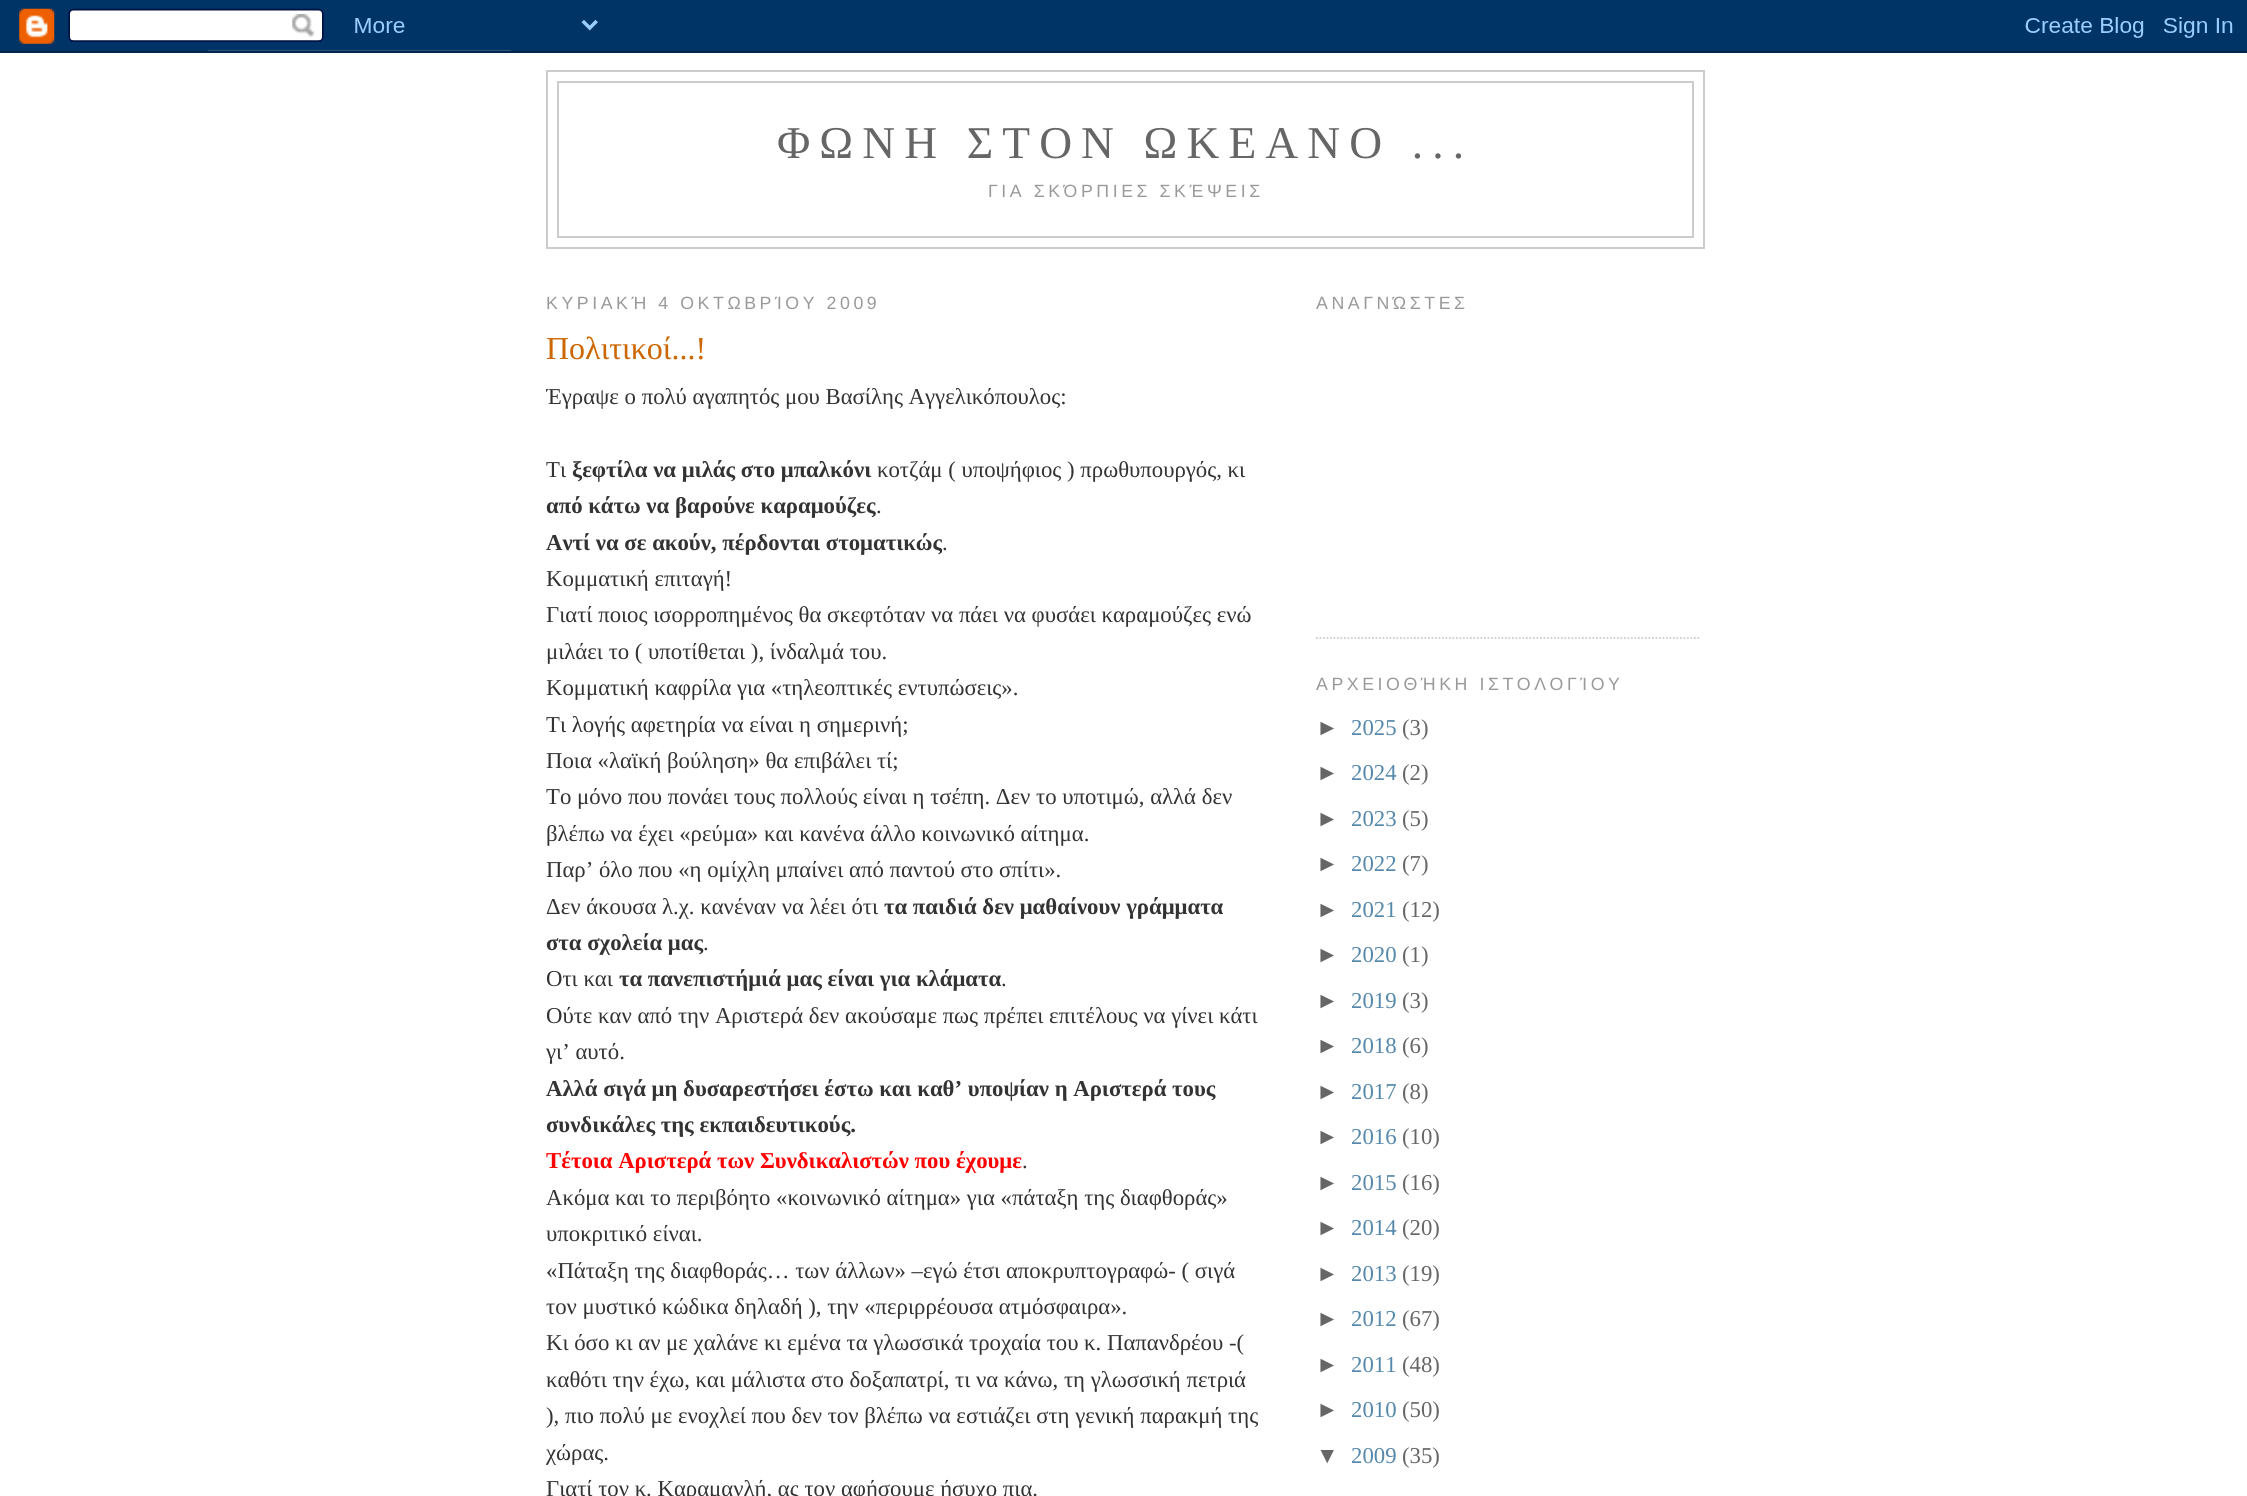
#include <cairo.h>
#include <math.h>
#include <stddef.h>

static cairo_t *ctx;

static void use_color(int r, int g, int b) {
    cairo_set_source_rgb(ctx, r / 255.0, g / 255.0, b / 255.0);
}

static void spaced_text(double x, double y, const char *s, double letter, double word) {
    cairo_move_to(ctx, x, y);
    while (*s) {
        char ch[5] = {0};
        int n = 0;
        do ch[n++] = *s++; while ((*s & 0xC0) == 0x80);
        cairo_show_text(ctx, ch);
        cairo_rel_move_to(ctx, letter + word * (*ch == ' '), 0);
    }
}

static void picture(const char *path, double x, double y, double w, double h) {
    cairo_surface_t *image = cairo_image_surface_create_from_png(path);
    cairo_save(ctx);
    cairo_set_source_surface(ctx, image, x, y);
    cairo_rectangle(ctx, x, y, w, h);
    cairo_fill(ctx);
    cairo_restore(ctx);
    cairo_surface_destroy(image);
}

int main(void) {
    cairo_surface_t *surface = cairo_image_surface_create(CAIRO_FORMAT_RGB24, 2247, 1496);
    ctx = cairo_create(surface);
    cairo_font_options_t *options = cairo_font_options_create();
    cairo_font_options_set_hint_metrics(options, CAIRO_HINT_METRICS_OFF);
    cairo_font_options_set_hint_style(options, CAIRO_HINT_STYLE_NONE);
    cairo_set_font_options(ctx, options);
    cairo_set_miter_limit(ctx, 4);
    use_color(255, 255, 255);
    cairo_paint(ctx);
    picture("img1.png", 0, 0, 2247, 53);
    cairo_rectangle(ctx, 547, 71, 1157, 177);
    use_color(204, 204, 204);
    cairo_stroke(ctx);
    cairo_rectangle(ctx, 558, 82, 1135, 155);
    cairo_stroke(ctx);
    cairo_select_font_face(ctx, "Liberation Serif", CAIRO_FONT_SLANT_NORMAL, CAIRO_FONT_WEIGHT_NORMAL);
    cairo_set_font_size(ctx, 45.5);
    use_color(102, 102, 102);
    spaced_text(777, 158, "ΦΩΝΗ ΣΤΟΝ ΩΚΕΑΝΟ ...", 9.1, 0);
    cairo_select_font_face(ctx, "Liberation Sans", CAIRO_FONT_SLANT_NORMAL, CAIRO_FONT_WEIGHT_NORMAL);
    cairo_set_font_size(ctx, 17.75);
    use_color(153, 153, 153);
    spaced_text(988, 197, "ΓΙΑ ΣΚΌΡΠΙΕΣ ΣΚΈΨΕΙΣ", 3.55, 0);
    spaced_text(546, 309, "ΚΥΡΙΑΚΉ 4 ΟΚΤΩΒΡΊΟΥ 2009", 3.55, 0);
    cairo_select_font_face(ctx, "Liberation Serif", CAIRO_FONT_SLANT_NORMAL, CAIRO_FONT_WEIGHT_NORMAL);
    cairo_set_font_size(ctx, 32);
    use_color(204, 102, 0);
    cairo_move_to(ctx, 546, 359);
    cairo_show_text(ctx, "Πολιτικοί...!");
    cairo_save(ctx);
    cairo_rectangle(ctx, 546, 266, 718, 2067);
    cairo_clip(ctx);
    cairo_set_font_size(ctx, 22.75);
    use_color(51, 51, 51);
    cairo_move_to(ctx, 546, 404);
    cairo_show_text(ctx, "Έγραψε ο πολύ αγαπητός μου Βασίλης Αγγελικόπουλος:");
    cairo_restore(ctx);
    cairo_set_font_size(ctx, 22.75);
    use_color(51, 51, 51);
    cairo_move_to(ctx, 546, 477);
    cairo_show_text(ctx, "Τι");
    cairo_select_font_face(ctx, "Liberation Serif", CAIRO_FONT_SLANT_NORMAL, CAIRO_FONT_WEIGHT_BOLD);
    cairo_move_to(ctx, 572, 477);
    cairo_show_text(ctx, "ξεφτίλα να μιλάς στο μπαλκόνι");
    cairo_select_font_face(ctx, "Liberation Serif", CAIRO_FONT_SLANT_NORMAL, CAIRO_FONT_WEIGHT_NORMAL);
    cairo_move_to(ctx, 877, 477);
    cairo_show_text(ctx, "κοτζάμ ( υποψήφιος ) πρωθυπουργός, κι");
    cairo_select_font_face(ctx, "Liberation Serif", CAIRO_FONT_SLANT_NORMAL, CAIRO_FONT_WEIGHT_BOLD);
    cairo_move_to(ctx, 546, 513);
    cairo_show_text(ctx, "από κάτω να βαρούνε καραμούζες");
    cairo_select_font_face(ctx, "Liberation Serif", CAIRO_FONT_SLANT_NORMAL, CAIRO_FONT_WEIGHT_NORMAL);
    cairo_move_to(ctx, 876, 513);
    cairo_show_text(ctx, ".");
    cairo_select_font_face(ctx, "Liberation Serif", CAIRO_FONT_SLANT_NORMAL, CAIRO_FONT_WEIGHT_BOLD);
    cairo_move_to(ctx, 546, 550);
    cairo_show_text(ctx, "Αντί να σε ακούν, πέρδονται στοματικώς");
    cairo_select_font_face(ctx, "Liberation Serif", CAIRO_FONT_SLANT_NORMAL, CAIRO_FONT_WEIGHT_NORMAL);
    cairo_move_to(ctx, 942, 550);
    cairo_show_text(ctx, ".");
    cairo_move_to(ctx, 546, 586);
    cairo_show_text(ctx, "Κομματική επιταγή!");
    cairo_move_to(ctx, 546, 622);
    cairo_show_text(ctx, "Γιατί ποιος ισορροπημένος θα σκεφτόταν να πάει να φυσάει καραμούζες ενώ");
    cairo_move_to(ctx, 546, 659);
    cairo_show_text(ctx, "μιλάει το ( υποτίθεται ), ίνδαλμά του.");
    cairo_move_to(ctx, 546, 695);
    cairo_show_text(ctx, "Κομματική καφρίλα για «τηλεοπτικές εντυπώσεις».");
    cairo_move_to(ctx, 546, 732);
    cairo_show_text(ctx, "Τι λογής αφετηρία να είναι η σημερινή;");
    cairo_move_to(ctx, 546, 768);
    cairo_show_text(ctx, "Ποια «λαϊκή βούληση» θα επιβάλει τί;");
    cairo_move_to(ctx, 546, 804);
    cairo_show_text(ctx, "Το μόνο που πονάει τους πολλούς είναι η τσέπη. Δεν το υποτιμώ, αλλά δεν");
    cairo_move_to(ctx, 546, 841);
    cairo_show_text(ctx, "βλέπω να έχει «ρεύμα» και κανένα άλλο κοινωνικό αίτημα.");
    cairo_move_to(ctx, 546, 877);
    cairo_show_text(ctx, "Παρ’ όλο που «η ομίχλη μπαίνει από παντού στο σπίτι».");
    cairo_move_to(ctx, 546, 914);
    cairo_show_text(ctx, "Δεν άκουσα λ.χ. κανέναν να λέει ότι");
    cairo_select_font_face(ctx, "Liberation Serif", CAIRO_FONT_SLANT_NORMAL, CAIRO_FONT_WEIGHT_BOLD);
    cairo_move_to(ctx, 884, 914);
    cairo_show_text(ctx, "τα παιδιά δεν μαθαίνουν γράμματα");
    cairo_move_to(ctx, 546, 950);
    cairo_show_text(ctx, "στα σχολεία μας");
    cairo_select_font_face(ctx, "Liberation Serif", CAIRO_FONT_SLANT_NORMAL, CAIRO_FONT_WEIGHT_NORMAL);
    cairo_move_to(ctx, 703, 950);
    cairo_show_text(ctx, ".");
    cairo_move_to(ctx, 546, 986);
    cairo_show_text(ctx, "Οτι και");
    cairo_select_font_face(ctx, "Liberation Serif", CAIRO_FONT_SLANT_NORMAL, CAIRO_FONT_WEIGHT_BOLD);
    cairo_move_to(ctx, 619, 986);
    cairo_show_text(ctx, "τα πανεπιστήμιά μας είναι για κλάματα");
    cairo_select_font_face(ctx, "Liberation Serif", CAIRO_FONT_SLANT_NORMAL, CAIRO_FONT_WEIGHT_NORMAL);
    cairo_move_to(ctx, 1001, 986);
    cairo_show_text(ctx, ".");
    cairo_move_to(ctx, 546, 1023);
    cairo_show_text(ctx, "Ούτε καν από την Αριστερά δεν ακούσαμε πως πρέπει επιτέλους να γίνει κάτι");
    cairo_move_to(ctx, 546, 1059);
    cairo_show_text(ctx, "γι’ αυτό.");
    cairo_select_font_face(ctx, "Liberation Serif", CAIRO_FONT_SLANT_NORMAL, CAIRO_FONT_WEIGHT_BOLD);
    cairo_move_to(ctx, 546, 1096);
    cairo_show_text(ctx, "Αλλά σιγά μη δυσαρεστήσει έστω και καθ’ υποψίαν η Αριστερά τους");
    cairo_move_to(ctx, 546, 1132);
    cairo_show_text(ctx, "συνδικάλες της εκπαιδευτικούς.");
    use_color(255, 0, 0);
    cairo_move_to(ctx, 546, 1168);
    cairo_show_text(ctx, "Τέτοια Αριστερά των Συνδικαλιστών που έχουμε");
    cairo_select_font_face(ctx, "Liberation Serif", CAIRO_FONT_SLANT_NORMAL, CAIRO_FONT_WEIGHT_NORMAL);
    use_color(51, 51, 51);
    cairo_move_to(ctx, 1022, 1168);
    cairo_show_text(ctx, ".");
    cairo_move_to(ctx, 546, 1205);
    cairo_show_text(ctx, "Ακόμα και το περιβόητο «κοινωνικό αίτημα» για «πάταξη της διαφθοράς»");
    cairo_move_to(ctx, 546, 1241);
    cairo_show_text(ctx, "υποκριτικό είναι.");
    cairo_move_to(ctx, 546, 1278);
    cairo_show_text(ctx, "«Πάταξη της διαφθοράς… των άλλων» –εγώ έτσι αποκρυπτογραφώ- ( σιγά");
    cairo_move_to(ctx, 546, 1314);
    cairo_show_text(ctx, "τον μυστικό κώδικα δηλαδή ), την «περιρρέουσα ατμόσφαιρα».");
    cairo_move_to(ctx, 546, 1350);
    cairo_show_text(ctx, "Κι όσο κι αν με χαλάνε κι εμένα τα γλωσσικά τροχαία του κ. Παπανδρέου -(");
    cairo_move_to(ctx, 546, 1387);
    cairo_show_text(ctx, "καθότι την έχω, και μάλιστα στο δοξαπατρί, τι να κάνω, τη γλωσσική πετριά");
    cairo_move_to(ctx, 546, 1423);
    cairo_show_text(ctx, "), πιο πολύ με ενοχλεί που δεν τον βλέπω να εστιάζει στη γενική παρακμή της");
    cairo_move_to(ctx, 546, 1460);
    cairo_show_text(ctx, "χώρας.");
    cairo_move_to(ctx, 546, 1496);
    cairo_show_text(ctx, "Γιατί τον κ. Καραμανλή, ας τον αφήσουμε ήσυχο πια.");
    cairo_new_path(ctx);
    cairo_move_to(ctx, 1316, 638);
    cairo_line_to(ctx, 1701, 638);
    use_color(204, 204, 204);
    cairo_set_line_width(ctx, 1.8);
    cairo_set_dash(ctx, (double[]){1.75, 1.75}, 2, 0);
    cairo_stroke(ctx);
    cairo_select_font_face(ctx, "Liberation Sans", CAIRO_FONT_SLANT_NORMAL, CAIRO_FONT_WEIGHT_NORMAL);
    cairo_set_font_size(ctx, 17.75);
    use_color(153, 153, 153);
    spaced_text(1316, 309, "ΑΝΑΓΝΏΣΤΕΣ", 3.55, 0);
    spaced_text(1316, 690, "ΑΡΧΕΙΟΘΉΚΗ ΙΣΤΟΛΟΓΊΟΥ", 3.55, 0);
    cairo_set_font_size(ctx, 22.75);
    use_color(102, 102, 102);
    cairo_move_to(ctx, 1316, 735);
    cairo_show_text(ctx, "►");
    cairo_select_font_face(ctx, "Liberation Serif", CAIRO_FONT_SLANT_NORMAL, CAIRO_FONT_WEIGHT_NORMAL);
    use_color(85, 136, 170);
    cairo_move_to(ctx, 1351, 735);
    cairo_show_text(ctx, "2025");
    use_color(102, 102, 102);
    cairo_move_to(ctx, 1402, 735);
    cairo_show_text(ctx, "(3)");
    cairo_select_font_face(ctx, "Liberation Sans", CAIRO_FONT_SLANT_NORMAL, CAIRO_FONT_WEIGHT_NORMAL);
    cairo_move_to(ctx, 1316, 780);
    cairo_show_text(ctx, "►");
    cairo_select_font_face(ctx, "Liberation Serif", CAIRO_FONT_SLANT_NORMAL, CAIRO_FONT_WEIGHT_NORMAL);
    use_color(85, 136, 170);
    cairo_move_to(ctx, 1351, 780);
    cairo_show_text(ctx, "2024");
    use_color(102, 102, 102);
    cairo_move_to(ctx, 1402, 780);
    cairo_show_text(ctx, "(2)");
    cairo_select_font_face(ctx, "Liberation Sans", CAIRO_FONT_SLANT_NORMAL, CAIRO_FONT_WEIGHT_NORMAL);
    cairo_move_to(ctx, 1316, 826);
    cairo_show_text(ctx, "►");
    cairo_select_font_face(ctx, "Liberation Serif", CAIRO_FONT_SLANT_NORMAL, CAIRO_FONT_WEIGHT_NORMAL);
    use_color(85, 136, 170);
    cairo_move_to(ctx, 1351, 826);
    cairo_show_text(ctx, "2023");
    use_color(102, 102, 102);
    cairo_move_to(ctx, 1402, 826);
    cairo_show_text(ctx, "(5)");
    cairo_select_font_face(ctx, "Liberation Sans", CAIRO_FONT_SLANT_NORMAL, CAIRO_FONT_WEIGHT_NORMAL);
    cairo_move_to(ctx, 1316, 871);
    cairo_show_text(ctx, "►");
    cairo_select_font_face(ctx, "Liberation Serif", CAIRO_FONT_SLANT_NORMAL, CAIRO_FONT_WEIGHT_NORMAL);
    use_color(85, 136, 170);
    cairo_move_to(ctx, 1351, 871);
    cairo_show_text(ctx, "2022");
    use_color(102, 102, 102);
    cairo_move_to(ctx, 1402, 871);
    cairo_show_text(ctx, "(7)");
    cairo_select_font_face(ctx, "Liberation Sans", CAIRO_FONT_SLANT_NORMAL, CAIRO_FONT_WEIGHT_NORMAL);
    cairo_move_to(ctx, 1316, 917);
    cairo_show_text(ctx, "►");
    cairo_select_font_face(ctx, "Liberation Serif", CAIRO_FONT_SLANT_NORMAL, CAIRO_FONT_WEIGHT_NORMAL);
    use_color(85, 136, 170);
    cairo_move_to(ctx, 1351, 917);
    cairo_show_text(ctx, "2021");
    use_color(102, 102, 102);
    cairo_move_to(ctx, 1402, 917);
    cairo_show_text(ctx, "(12)");
    cairo_select_font_face(ctx, "Liberation Sans", CAIRO_FONT_SLANT_NORMAL, CAIRO_FONT_WEIGHT_NORMAL);
    cairo_move_to(ctx, 1316, 962);
    cairo_show_text(ctx, "►");
    cairo_select_font_face(ctx, "Liberation Serif", CAIRO_FONT_SLANT_NORMAL, CAIRO_FONT_WEIGHT_NORMAL);
    use_color(85, 136, 170);
    cairo_move_to(ctx, 1351, 962);
    cairo_show_text(ctx, "2020");
    use_color(102, 102, 102);
    cairo_move_to(ctx, 1402, 962);
    cairo_show_text(ctx, "(1)");
    cairo_select_font_face(ctx, "Liberation Sans", CAIRO_FONT_SLANT_NORMAL, CAIRO_FONT_WEIGHT_NORMAL);
    cairo_move_to(ctx, 1316, 1008);
    cairo_show_text(ctx, "►");
    cairo_select_font_face(ctx, "Liberation Serif", CAIRO_FONT_SLANT_NORMAL, CAIRO_FONT_WEIGHT_NORMAL);
    use_color(85, 136, 170);
    cairo_move_to(ctx, 1351, 1008);
    cairo_show_text(ctx, "2019");
    use_color(102, 102, 102);
    cairo_move_to(ctx, 1402, 1008);
    cairo_show_text(ctx, "(3)");
    cairo_select_font_face(ctx, "Liberation Sans", CAIRO_FONT_SLANT_NORMAL, CAIRO_FONT_WEIGHT_NORMAL);
    cairo_move_to(ctx, 1316, 1053);
    cairo_show_text(ctx, "►");
    cairo_select_font_face(ctx, "Liberation Serif", CAIRO_FONT_SLANT_NORMAL, CAIRO_FONT_WEIGHT_NORMAL);
    use_color(85, 136, 170);
    cairo_move_to(ctx, 1351, 1053);
    cairo_show_text(ctx, "2018");
    use_color(102, 102, 102);
    cairo_move_to(ctx, 1402, 1053);
    cairo_show_text(ctx, "(6)");
    cairo_select_font_face(ctx, "Liberation Sans", CAIRO_FONT_SLANT_NORMAL, CAIRO_FONT_WEIGHT_NORMAL);
    cairo_move_to(ctx, 1316, 1099);
    cairo_show_text(ctx, "►");
    cairo_select_font_face(ctx, "Liberation Serif", CAIRO_FONT_SLANT_NORMAL, CAIRO_FONT_WEIGHT_NORMAL);
    use_color(85, 136, 170);
    cairo_move_to(ctx, 1351, 1099);
    cairo_show_text(ctx, "2017");
    use_color(102, 102, 102);
    cairo_move_to(ctx, 1402, 1099);
    cairo_show_text(ctx, "(8)");
    cairo_select_font_face(ctx, "Liberation Sans", CAIRO_FONT_SLANT_NORMAL, CAIRO_FONT_WEIGHT_NORMAL);
    cairo_move_to(ctx, 1316, 1144);
    cairo_show_text(ctx, "►");
    cairo_select_font_face(ctx, "Liberation Serif", CAIRO_FONT_SLANT_NORMAL, CAIRO_FONT_WEIGHT_NORMAL);
    use_color(85, 136, 170);
    cairo_move_to(ctx, 1351, 1144);
    cairo_show_text(ctx, "2016");
    use_color(102, 102, 102);
    cairo_move_to(ctx, 1402, 1144);
    cairo_show_text(ctx, "(10)");
    cairo_select_font_face(ctx, "Liberation Sans", CAIRO_FONT_SLANT_NORMAL, CAIRO_FONT_WEIGHT_NORMAL);
    cairo_move_to(ctx, 1316, 1190);
    cairo_show_text(ctx, "►");
    cairo_select_font_face(ctx, "Liberation Serif", CAIRO_FONT_SLANT_NORMAL, CAIRO_FONT_WEIGHT_NORMAL);
    use_color(85, 136, 170);
    cairo_move_to(ctx, 1351, 1190);
    cairo_show_text(ctx, "2015");
    use_color(102, 102, 102);
    cairo_move_to(ctx, 1402, 1190);
    cairo_show_text(ctx, "(16)");
    cairo_select_font_face(ctx, "Liberation Sans", CAIRO_FONT_SLANT_NORMAL, CAIRO_FONT_WEIGHT_NORMAL);
    cairo_move_to(ctx, 1316, 1235);
    cairo_show_text(ctx, "►");
    cairo_select_font_face(ctx, "Liberation Serif", CAIRO_FONT_SLANT_NORMAL, CAIRO_FONT_WEIGHT_NORMAL);
    use_color(85, 136, 170);
    cairo_move_to(ctx, 1351, 1235);
    cairo_show_text(ctx, "2014");
    use_color(102, 102, 102);
    cairo_move_to(ctx, 1402, 1235);
    cairo_show_text(ctx, "(20)");
    cairo_select_font_face(ctx, "Liberation Sans", CAIRO_FONT_SLANT_NORMAL, CAIRO_FONT_WEIGHT_NORMAL);
    cairo_move_to(ctx, 1316, 1281);
    cairo_show_text(ctx, "►");
    cairo_select_font_face(ctx, "Liberation Serif", CAIRO_FONT_SLANT_NORMAL, CAIRO_FONT_WEIGHT_NORMAL);
    use_color(85, 136, 170);
    cairo_move_to(ctx, 1351, 1281);
    cairo_show_text(ctx, "2013");
    use_color(102, 102, 102);
    cairo_move_to(ctx, 1402, 1281);
    cairo_show_text(ctx, "(19)");
    cairo_select_font_face(ctx, "Liberation Sans", CAIRO_FONT_SLANT_NORMAL, CAIRO_FONT_WEIGHT_NORMAL);
    cairo_move_to(ctx, 1316, 1326);
    cairo_show_text(ctx, "►");
    cairo_select_font_face(ctx, "Liberation Serif", CAIRO_FONT_SLANT_NORMAL, CAIRO_FONT_WEIGHT_NORMAL);
    use_color(85, 136, 170);
    cairo_move_to(ctx, 1351, 1326);
    cairo_show_text(ctx, "2012");
    use_color(102, 102, 102);
    cairo_move_to(ctx, 1402, 1326);
    cairo_show_text(ctx, "(67)");
    cairo_select_font_face(ctx, "Liberation Sans", CAIRO_FONT_SLANT_NORMAL, CAIRO_FONT_WEIGHT_NORMAL);
    cairo_move_to(ctx, 1316, 1372);
    cairo_show_text(ctx, "►");
    cairo_select_font_face(ctx, "Liberation Serif", CAIRO_FONT_SLANT_NORMAL, CAIRO_FONT_WEIGHT_NORMAL);
    use_color(85, 136, 170);
    cairo_move_to(ctx, 1351, 1372);
    cairo_show_text(ctx, "2011");
    use_color(102, 102, 102);
    cairo_move_to(ctx, 1402, 1372);
    cairo_show_text(ctx, "(48)");
    cairo_select_font_face(ctx, "Liberation Sans", CAIRO_FONT_SLANT_NORMAL, CAIRO_FONT_WEIGHT_NORMAL);
    cairo_move_to(ctx, 1316, 1417);
    cairo_show_text(ctx, "►");
    cairo_select_font_face(ctx, "Liberation Serif", CAIRO_FONT_SLANT_NORMAL, CAIRO_FONT_WEIGHT_NORMAL);
    use_color(85, 136, 170);
    cairo_move_to(ctx, 1351, 1417);
    cairo_show_text(ctx, "2010");
    use_color(102, 102, 102);
    cairo_move_to(ctx, 1402, 1417);
    cairo_show_text(ctx, "(50)");
    cairo_select_font_face(ctx, "Liberation Sans", CAIRO_FONT_SLANT_NORMAL, CAIRO_FONT_WEIGHT_NORMAL);
    cairo_move_to(ctx, 1316, 1463);
    cairo_show_text(ctx, "▼");
    cairo_select_font_face(ctx, "Liberation Serif", CAIRO_FONT_SLANT_NORMAL, CAIRO_FONT_WEIGHT_NORMAL);
    use_color(85, 136, 170);
    cairo_move_to(ctx, 1351, 1463);
    cairo_show_text(ctx, "2009");
    use_color(102, 102, 102);
    cairo_move_to(ctx, 1402, 1463);
    cairo_show_text(ctx, "(35)");
    cairo_surface_write_to_png(surface, "result.png");
    cairo_font_options_destroy(options);
    cairo_destroy(ctx);
    cairo_surface_destroy(surface);
    return 0;
}
